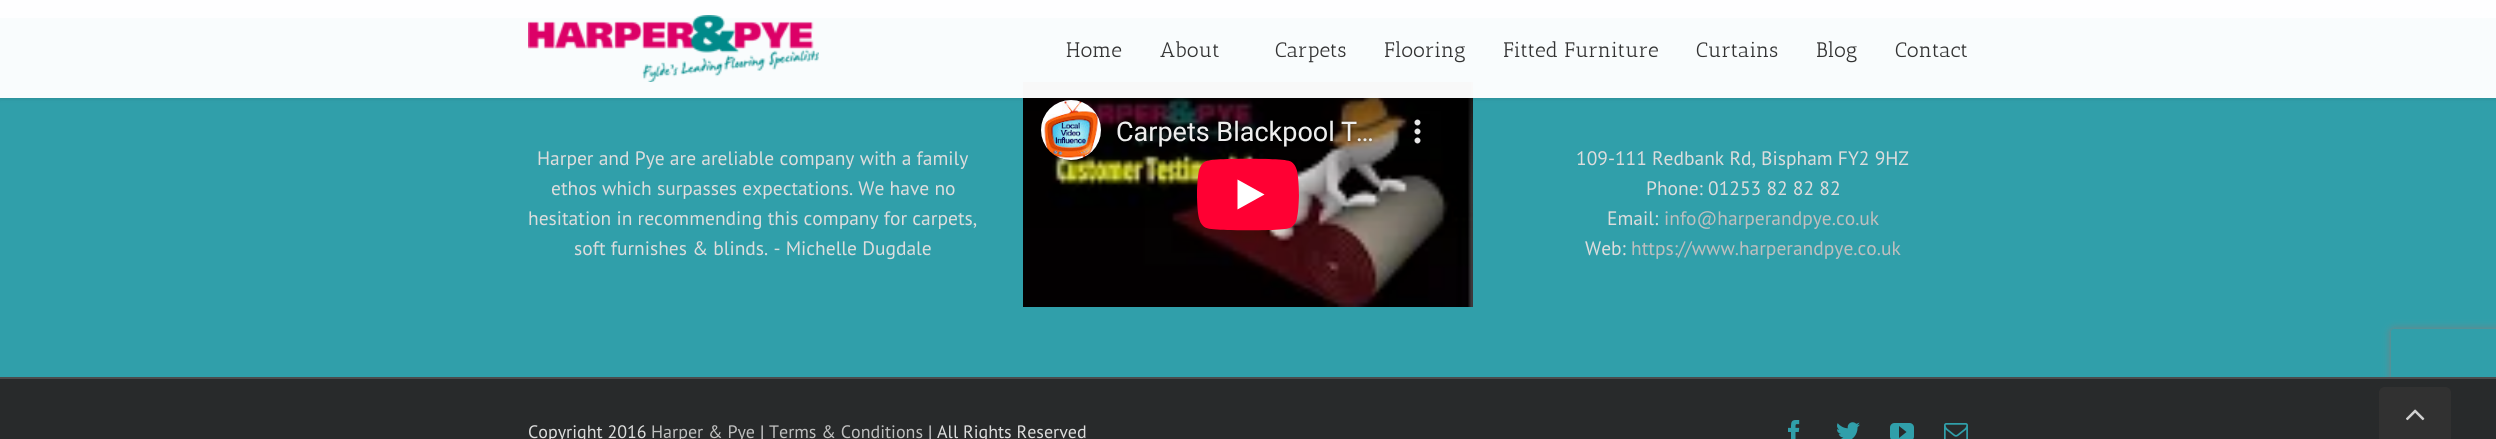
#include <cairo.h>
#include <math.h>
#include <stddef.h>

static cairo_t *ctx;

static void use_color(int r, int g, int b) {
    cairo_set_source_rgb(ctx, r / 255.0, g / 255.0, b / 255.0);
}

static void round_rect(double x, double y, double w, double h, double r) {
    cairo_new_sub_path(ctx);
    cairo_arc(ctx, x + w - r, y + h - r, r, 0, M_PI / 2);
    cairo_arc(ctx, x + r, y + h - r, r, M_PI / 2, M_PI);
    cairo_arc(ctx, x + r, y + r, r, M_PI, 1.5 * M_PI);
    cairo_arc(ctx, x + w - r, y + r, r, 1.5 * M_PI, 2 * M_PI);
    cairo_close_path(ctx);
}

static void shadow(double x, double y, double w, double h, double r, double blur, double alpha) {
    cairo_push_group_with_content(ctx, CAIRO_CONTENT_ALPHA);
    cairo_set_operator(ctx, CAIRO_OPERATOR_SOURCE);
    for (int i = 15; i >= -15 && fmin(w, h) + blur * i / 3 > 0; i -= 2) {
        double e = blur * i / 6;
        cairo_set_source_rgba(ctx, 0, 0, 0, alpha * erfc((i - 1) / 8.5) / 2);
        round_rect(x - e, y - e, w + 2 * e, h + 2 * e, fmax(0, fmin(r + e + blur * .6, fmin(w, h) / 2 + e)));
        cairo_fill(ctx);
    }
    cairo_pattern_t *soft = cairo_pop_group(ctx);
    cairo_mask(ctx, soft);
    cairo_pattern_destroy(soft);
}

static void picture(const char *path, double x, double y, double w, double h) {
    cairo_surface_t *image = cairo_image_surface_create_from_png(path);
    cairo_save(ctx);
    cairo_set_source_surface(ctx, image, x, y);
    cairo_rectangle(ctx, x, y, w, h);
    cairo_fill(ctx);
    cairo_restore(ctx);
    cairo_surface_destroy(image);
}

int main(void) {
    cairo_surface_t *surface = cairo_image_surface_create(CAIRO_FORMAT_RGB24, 2496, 439);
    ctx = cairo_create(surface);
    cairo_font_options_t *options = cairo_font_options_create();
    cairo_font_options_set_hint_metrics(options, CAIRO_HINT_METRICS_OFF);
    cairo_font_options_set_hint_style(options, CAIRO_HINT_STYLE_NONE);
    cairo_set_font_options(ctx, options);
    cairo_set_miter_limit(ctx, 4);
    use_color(48, 159, 170);
    cairo_paint(ctx);
    use_color(233, 234, 238);
    cairo_rectangle(ctx, 0, 0, 2496, 18);
    cairo_fill(ctx);
    picture("img2.png", 1023, 82, 450, 225);
    cairo_save(ctx);
    cairo_set_fill_rule(ctx, CAIRO_FILL_RULE_EVEN_ODD);
    cairo_new_path(ctx);
    cairo_move_to(ctx, 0, 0);
    cairo_line_to(ctx, 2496, 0);
    cairo_line_to(ctx, 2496, 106);
    cairo_line_to(ctx, 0, 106);
    cairo_close_path(ctx);
    cairo_move_to(ctx, 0, 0);
    cairo_line_to(ctx, 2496, 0);
    cairo_line_to(ctx, 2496, 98);
    cairo_line_to(ctx, 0, 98);
    cairo_close_path(ctx);
    cairo_clip(ctx);
    use_color(0, 0, 0);
    shadow(0, 2, 2496, 97, 0, 2, 0.12);
    cairo_restore(ctx);
    cairo_set_source_rgba(ctx, 1, 1, 1, 0.97);
    cairo_rectangle(ctx, 0, 0, 2496, 98);
    cairo_fill(ctx);
    picture("img1.png", 528, 15, 291, 67);
    cairo_select_font_face(ctx, "Antic Slab", CAIRO_FONT_SLANT_NORMAL, CAIRO_FONT_WEIGHT_NORMAL);
    cairo_set_font_size(ctx, 21);
    use_color(51, 51, 51);
    cairo_move_to(ctx, 1066, 57);
    cairo_show_text(ctx, "Home");
    cairo_move_to(ctx, 1160, 57);
    cairo_show_text(ctx, "About");
    cairo_move_to(ctx, 1275, 57);
    cairo_show_text(ctx, "Carpets");
    cairo_move_to(ctx, 1384, 57);
    cairo_show_text(ctx, "Flooring");
    cairo_move_to(ctx, 1503, 57);
    cairo_show_text(ctx, "Fitted Furniture");
    cairo_move_to(ctx, 1696, 57);
    cairo_show_text(ctx, "Curtains");
    cairo_move_to(ctx, 1816, 57);
    cairo_show_text(ctx, "Blog");
    cairo_move_to(ctx, 1895, 57);
    cairo_show_text(ctx, "Contact");
    cairo_select_font_face(ctx, "PT Sans", CAIRO_FONT_SLANT_NORMAL, CAIRO_FONT_WEIGHT_NORMAL);
    cairo_set_font_size(ctx, 19.5);
    use_color(221, 221, 221);
    cairo_move_to(ctx, 537, 165);
    cairo_show_text(ctx, "Harper and Pye are areliable company with a family");
    cairo_move_to(ctx, 551, 195);
    cairo_show_text(ctx, "ethos which surpasses expectations. We have no");
    cairo_move_to(ctx, 528, 225);
    cairo_show_text(ctx, "hesitation in recommending this company for carpets,");
    cairo_move_to(ctx, 574, 255);
    cairo_show_text(ctx, "soft furnishes & blinds. - Michelle Dugdale");
    cairo_move_to(ctx, 1576, 165);
    cairo_show_text(ctx, "109-111 Redbank Rd, Bispham FY2 9HZ");
    cairo_move_to(ctx, 1646, 195);
    cairo_show_text(ctx, "Phone: 01253 82 82 82");
    cairo_move_to(ctx, 1607, 225);
    cairo_show_text(ctx, "Email:");
    use_color(191, 191, 191);
    cairo_move_to(ctx, 1664, 225);
    cairo_show_text(ctx, "info@harperandpye.co.uk");
    use_color(221, 221, 221);
    cairo_move_to(ctx, 1585, 255);
    cairo_show_text(ctx, "Web:");
    use_color(191, 191, 191);
    cairo_move_to(ctx, 1631, 255);
    cairo_show_text(ctx, "https://www.harperandpye.co.uk");
    cairo_save(ctx);
    cairo_set_fill_rule(ctx, CAIRO_FILL_RULE_EVEN_ODD);
    cairo_new_path(ctx);
    cairo_move_to(ctx, 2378, 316);
    cairo_line_to(ctx, 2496, 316);
    cairo_line_to(ctx, 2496, 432);
    cairo_line_to(ctx, 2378, 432);
    cairo_close_path(ctx);
    cairo_move_to(ctx, 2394, 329);
    cairo_line_to(ctx, 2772, 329);
    cairo_curve_to(ctx, 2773.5, 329, 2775, 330.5, 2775, 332);
    cairo_line_to(ctx, 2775, 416);
    cairo_curve_to(ctx, 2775, 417.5, 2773.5, 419, 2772, 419);
    cairo_line_to(ctx, 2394, 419);
    cairo_curve_to(ctx, 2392.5, 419, 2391, 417.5, 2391, 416);
    cairo_line_to(ctx, 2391, 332);
    cairo_curve_to(ctx, 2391, 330.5, 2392.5, 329, 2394, 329);
    cairo_close_path(ctx);
    cairo_clip(ctx);
    use_color(128, 128, 128);
    shadow(2391, 329, 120, 90, 3, 4, 1);
    cairo_restore(ctx);
    use_color(40, 42, 43);
    cairo_rectangle(ctx, 0, 379, 2496, 60);
    cairo_fill(ctx);
    use_color(75, 76, 77);
    cairo_rectangle(ctx, 0, 377, 2496, 2);
    cairo_fill(ctx);
    cairo_set_font_size(ctx, 18);
    use_color(221, 221, 221);
    cairo_move_to(ctx, 528, 438);
    cairo_show_text(ctx, "Copyright 2016");
    use_color(191, 191, 191);
    cairo_move_to(ctx, 651, 438);
    cairo_show_text(ctx, "Harper & Pye");
    use_color(221, 221, 221);
    cairo_move_to(ctx, 760, 438);
    cairo_show_text(ctx, "|");
    use_color(191, 191, 191);
    cairo_move_to(ctx, 769, 438);
    cairo_show_text(ctx, "Terms & Conditions");
    use_color(221, 221, 221);
    cairo_move_to(ctx, 928, 438);
    cairo_show_text(ctx, "| All Rights Reserved");
    picture("img3.png", 1788, 420, 12, 19);
    picture("img4.png", 1837, 422, 23, 17);
    picture("img5.png", 1890, 423, 24, 16);
    picture("img6.png", 1944, 423, 24, 16);
    use_color(49, 49, 49);
    cairo_new_path(ctx);
    cairo_move_to(ctx, 2385, 387);
    cairo_line_to(ctx, 2445, 387);
    cairo_curve_to(ctx, 2448.5, 387, 2451, 389.5, 2451, 393);
    cairo_line_to(ctx, 2451, 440);
    cairo_line_to(ctx, 2379, 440);
    cairo_line_to(ctx, 2379, 393);
    cairo_curve_to(ctx, 2379, 389.5, 2381.5, 387, 2385, 387);
    cairo_close_path(ctx);
    cairo_fill(ctx);
    picture("img7.png", 2406, 409, 19, 12);
    cairo_surface_write_to_png(surface, "result.png");
    cairo_font_options_destroy(options);
    cairo_destroy(ctx);
    cairo_surface_destroy(surface);
    return 0;
}
